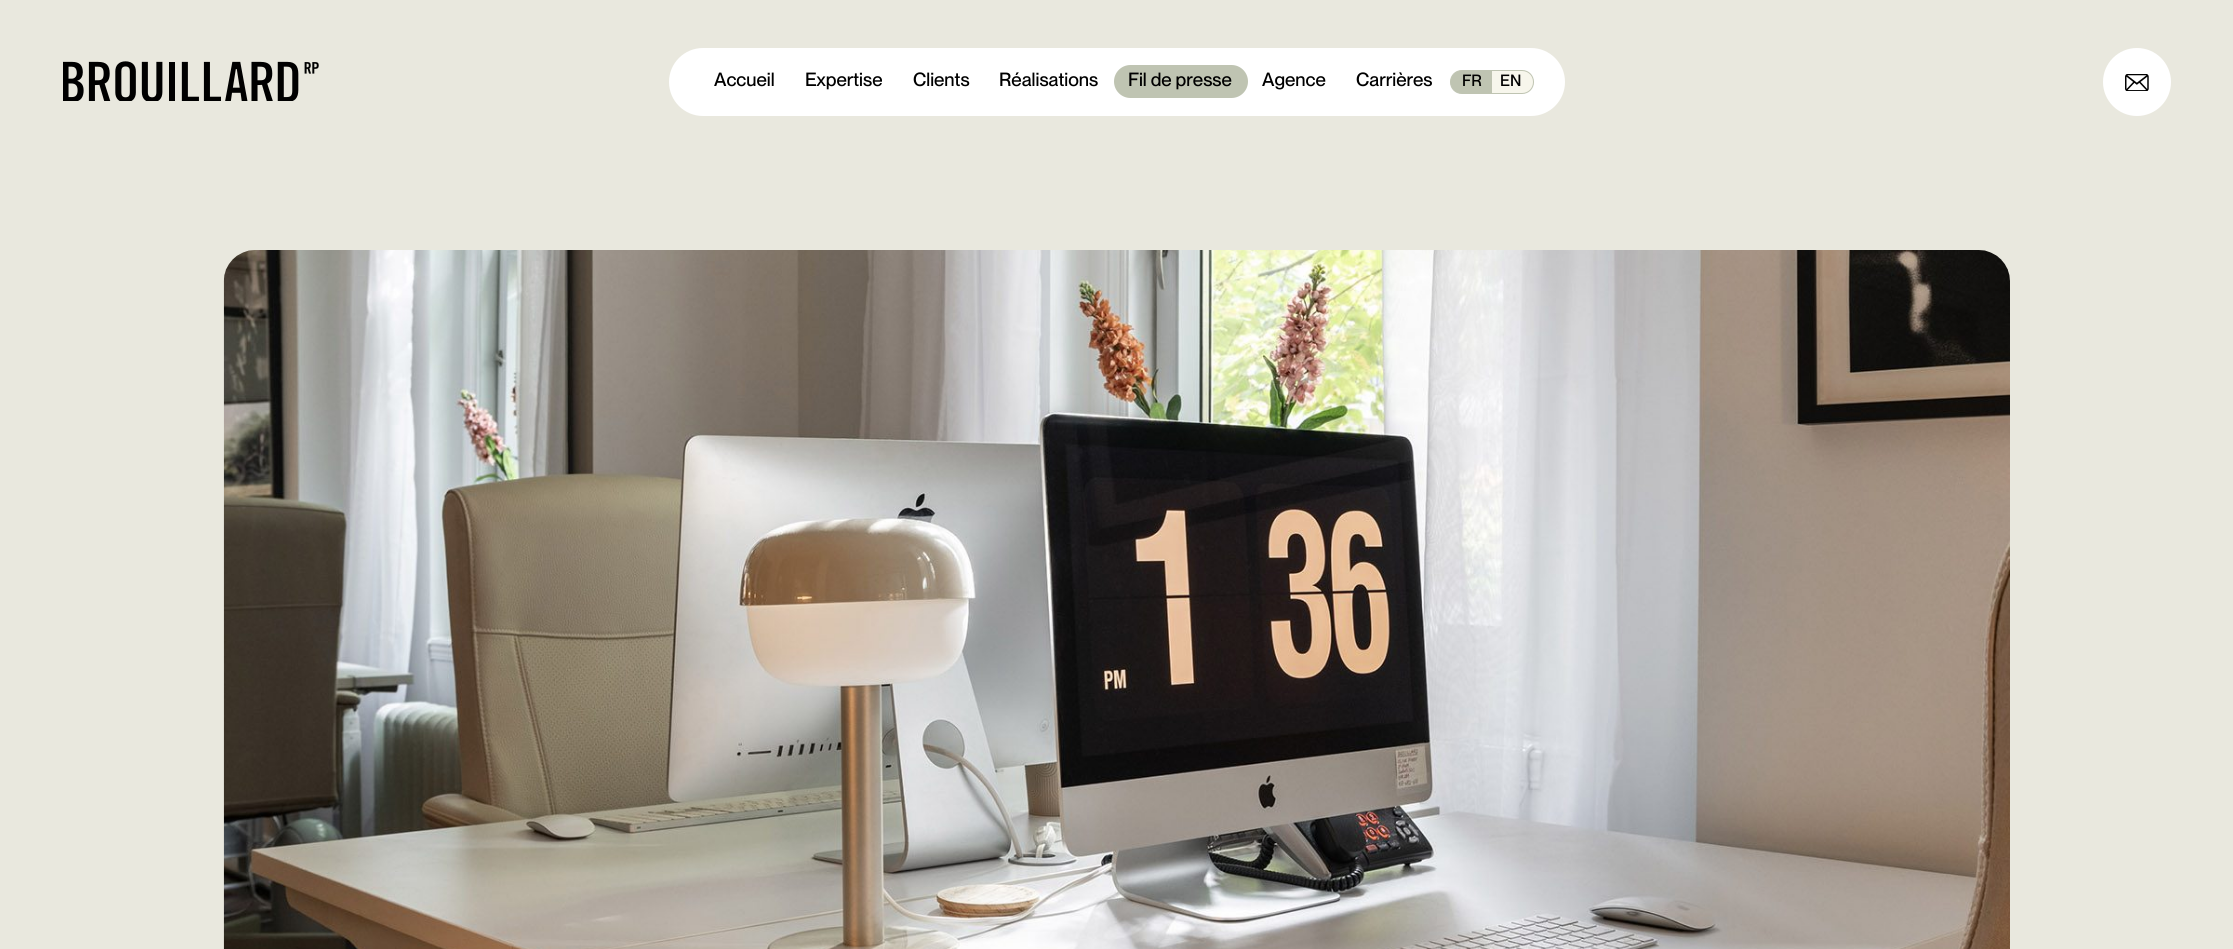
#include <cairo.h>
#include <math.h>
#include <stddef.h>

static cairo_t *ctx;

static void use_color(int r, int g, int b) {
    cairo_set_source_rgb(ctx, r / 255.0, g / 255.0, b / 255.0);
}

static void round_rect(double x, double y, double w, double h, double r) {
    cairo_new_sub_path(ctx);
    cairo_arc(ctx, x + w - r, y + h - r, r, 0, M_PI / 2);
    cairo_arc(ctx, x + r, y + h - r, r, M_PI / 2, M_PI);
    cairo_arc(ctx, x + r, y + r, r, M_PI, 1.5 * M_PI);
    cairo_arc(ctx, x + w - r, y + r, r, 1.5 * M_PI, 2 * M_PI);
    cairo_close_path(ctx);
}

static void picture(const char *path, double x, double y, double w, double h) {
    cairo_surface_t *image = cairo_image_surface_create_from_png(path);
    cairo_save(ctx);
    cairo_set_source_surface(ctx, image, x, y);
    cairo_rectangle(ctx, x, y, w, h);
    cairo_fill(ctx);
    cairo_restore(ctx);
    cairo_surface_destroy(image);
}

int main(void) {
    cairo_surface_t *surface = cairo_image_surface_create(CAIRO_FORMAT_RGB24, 2233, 949);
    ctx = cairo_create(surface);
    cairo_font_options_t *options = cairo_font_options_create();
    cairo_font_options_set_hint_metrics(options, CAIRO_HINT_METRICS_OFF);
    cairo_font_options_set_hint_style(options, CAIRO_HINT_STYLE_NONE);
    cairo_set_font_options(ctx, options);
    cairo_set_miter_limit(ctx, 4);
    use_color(233, 232, 222);
    cairo_paint(ctx);
    picture("img1.png", 63, 61, 256, 40);
    use_color(255, 255, 255);
    round_rect(669, 48, 896, 68, 34);
    cairo_fill(ctx);
    cairo_select_font_face(ctx, "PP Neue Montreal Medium", CAIRO_FONT_SLANT_NORMAL, CAIRO_FONT_WEIGHT_NORMAL);
    cairo_set_font_size(ctx, 18.75);
    use_color(0, 0, 0);
    cairo_move_to(ctx, 714, 86);
    cairo_show_text(ctx, "Accueil");
    cairo_move_to(ctx, 805, 86);
    cairo_show_text(ctx, "Expertise");
    cairo_move_to(ctx, 913, 86);
    cairo_show_text(ctx, "Clients");
    cairo_move_to(ctx, 999, 86);
    cairo_show_text(ctx, "Réalisations");
    use_color(191, 196, 178);
    round_rect(1114, 65, 134, 33, 16.5);
    cairo_fill(ctx);
    use_color(0, 0, 0);
    cairo_move_to(ctx, 1128, 86);
    cairo_show_text(ctx, "Fil de presse");
    cairo_move_to(ctx, 1262, 86);
    cairo_show_text(ctx, "Agence");
    cairo_move_to(ctx, 1356, 86);
    cairo_show_text(ctx, "Carrières");
    use_color(191, 196, 178);
    cairo_new_path(ctx);
    cairo_move_to(ctx, 1462, 70.5);
    cairo_line_to(ctx, 1490.5, 70.5);
    cairo_line_to(ctx, 1490.5, 93.5);
    cairo_line_to(ctx, 1462, 93.5);
    cairo_curve_to(ctx, 1455.5, 93.5, 1450.5, 88.5, 1450.5, 82);
    cairo_curve_to(ctx, 1450.5, 75.5, 1455.5, 70.5, 1462, 70.5);
    cairo_close_path(ctx);
    cairo_fill_preserve(ctx);
    cairo_set_line_width(ctx, 1);
    cairo_stroke(ctx);
    cairo_set_font_size(ctx, 16);
    use_color(0, 0, 0);
    cairo_move_to(ctx, 1462, 86);
    cairo_show_text(ctx, "FR");
    use_color(247, 246, 236);
    cairo_new_path(ctx);
    cairo_move_to(ctx, 1491.5, 70.5);
    cairo_line_to(ctx, 1522, 70.5);
    cairo_curve_to(ctx, 1528.5, 70.5, 1533.5, 75.5, 1533.5, 82);
    cairo_curve_to(ctx, 1533.5, 88.5, 1528.5, 93.5, 1522, 93.5);
    cairo_line_to(ctx, 1491.5, 93.5);
    cairo_close_path(ctx);
    cairo_fill_preserve(ctx);
    use_color(191, 196, 178);
    cairo_stroke(ctx);
    use_color(0, 0, 0);
    cairo_move_to(ctx, 1500, 86);
    cairo_show_text(ctx, "EN");
    use_color(255, 255, 255);
    cairo_new_path(ctx);
    cairo_arc(ctx, 2137, 82, 34, 0, 2 * M_PI);
    cairo_fill(ctx);
    picture("img2.png", 2125, 74, 24, 17);
    picture("img3.png", 223, 250, 1787, 699);
    cairo_surface_write_to_png(surface, "result.png");
    cairo_font_options_destroy(options);
    cairo_destroy(ctx);
    cairo_surface_destroy(surface);
    return 0;
}
